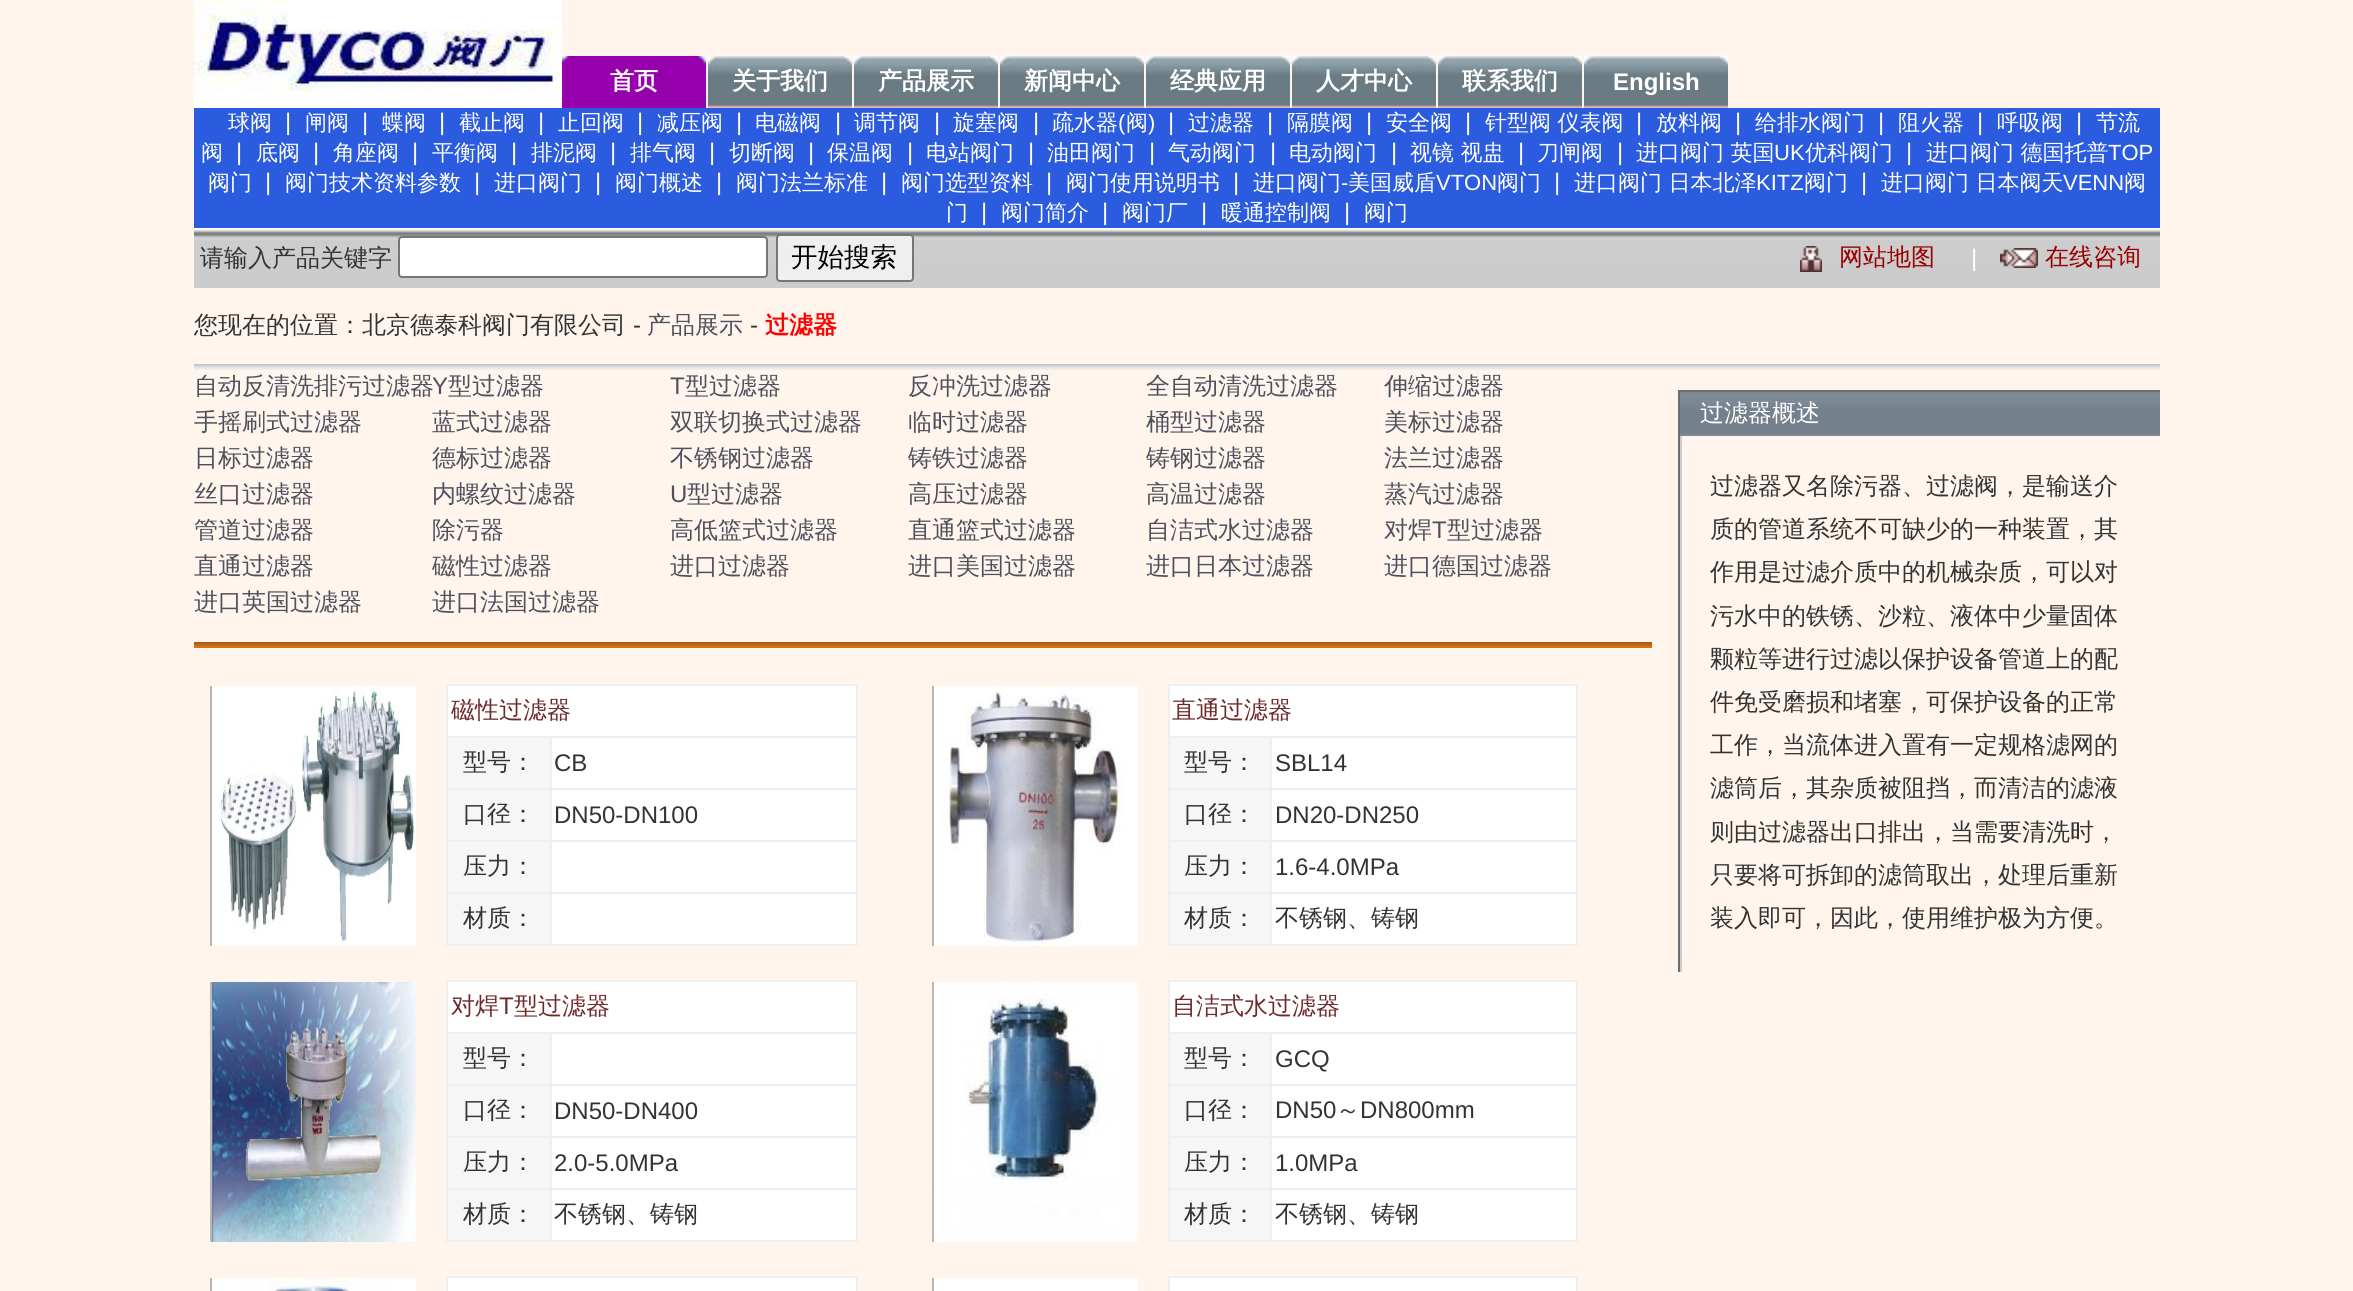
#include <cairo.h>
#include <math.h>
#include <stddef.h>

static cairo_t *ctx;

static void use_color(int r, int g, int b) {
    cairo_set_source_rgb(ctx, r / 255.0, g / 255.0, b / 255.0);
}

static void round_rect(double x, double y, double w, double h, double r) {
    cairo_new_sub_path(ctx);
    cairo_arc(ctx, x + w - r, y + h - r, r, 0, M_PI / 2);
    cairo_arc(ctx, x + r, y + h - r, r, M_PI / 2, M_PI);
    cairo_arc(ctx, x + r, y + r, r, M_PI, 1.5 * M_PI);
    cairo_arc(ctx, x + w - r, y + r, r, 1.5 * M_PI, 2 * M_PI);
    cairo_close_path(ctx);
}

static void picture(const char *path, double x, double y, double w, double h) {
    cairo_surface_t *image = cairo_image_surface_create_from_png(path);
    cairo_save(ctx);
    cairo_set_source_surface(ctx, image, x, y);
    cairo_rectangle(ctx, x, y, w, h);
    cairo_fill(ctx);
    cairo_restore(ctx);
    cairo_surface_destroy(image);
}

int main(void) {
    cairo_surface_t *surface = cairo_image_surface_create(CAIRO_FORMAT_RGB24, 2353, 1291);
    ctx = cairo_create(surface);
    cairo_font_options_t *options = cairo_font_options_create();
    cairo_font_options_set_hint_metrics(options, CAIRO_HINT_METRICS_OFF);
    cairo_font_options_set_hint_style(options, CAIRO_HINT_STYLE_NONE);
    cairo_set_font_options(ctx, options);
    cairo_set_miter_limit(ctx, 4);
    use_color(255, 245, 236);
    cairo_paint(ctx);
    picture("img1.png", 194, 0, 368, 108);
    picture("img2.png", 562, 56, 144, 52);
    cairo_select_font_face(ctx, "WenQuanYi Zen Hei", CAIRO_FONT_SLANT_NORMAL, CAIRO_FONT_WEIGHT_BOLD);
    cairo_set_font_size(ctx, 24);
    use_color(255, 255, 255);
    cairo_move_to(ctx, 610, 89);
    cairo_show_text(ctx, "首页");
    picture("img3.png", 708, 56, 144, 52);
    cairo_move_to(ctx, 732, 89);
    cairo_show_text(ctx, "关于我们");
    picture("img3.png", 854, 56, 144, 52);
    cairo_move_to(ctx, 878, 89);
    cairo_show_text(ctx, "产品展示");
    picture("img3.png", 1000, 56, 144, 52);
    cairo_move_to(ctx, 1024, 89);
    cairo_show_text(ctx, "新闻中心");
    picture("img3.png", 1146, 56, 144, 52);
    cairo_move_to(ctx, 1170, 89);
    cairo_show_text(ctx, "经典应用");
    picture("img3.png", 1292, 56, 144, 52);
    cairo_move_to(ctx, 1316, 89);
    cairo_show_text(ctx, "人才中心");
    picture("img3.png", 1438, 56, 144, 52);
    cairo_move_to(ctx, 1462, 89);
    cairo_show_text(ctx, "联系我们");
    picture("img3.png", 1584, 56, 144, 52);
    cairo_select_font_face(ctx, "Liberation Sans", CAIRO_FONT_SLANT_NORMAL, CAIRO_FONT_WEIGHT_BOLD);
    cairo_move_to(ctx, 1613, 90);
    cairo_show_text(ctx, "English");
    use_color(43, 92, 223);
    cairo_rectangle(ctx, 194, 108, 1966, 120);
    cairo_fill(ctx);
    cairo_select_font_face(ctx, "WenQuanYi Zen Hei Medium", CAIRO_FONT_SLANT_NORMAL, CAIRO_FONT_WEIGHT_NORMAL);
    cairo_set_font_size(ctx, 22);
    use_color(255, 255, 255);
    cairo_move_to(ctx, 228, 130);
    cairo_show_text(ctx, "球阀");
    cairo_select_font_face(ctx, "Liberation Sans", CAIRO_FONT_SLANT_NORMAL, CAIRO_FONT_WEIGHT_NORMAL);
    cairo_set_font_size(ctx, 24);
    cairo_move_to(ctx, 285, 130);
    cairo_show_text(ctx, "|");
    cairo_select_font_face(ctx, "WenQuanYi Zen Hei Medium", CAIRO_FONT_SLANT_NORMAL, CAIRO_FONT_WEIGHT_NORMAL);
    cairo_set_font_size(ctx, 22);
    cairo_move_to(ctx, 305, 130);
    cairo_show_text(ctx, "闸阀");
    cairo_select_font_face(ctx, "Liberation Sans", CAIRO_FONT_SLANT_NORMAL, CAIRO_FONT_WEIGHT_NORMAL);
    cairo_set_font_size(ctx, 24);
    cairo_move_to(ctx, 362, 130);
    cairo_show_text(ctx, "|");
    cairo_select_font_face(ctx, "WenQuanYi Zen Hei Medium", CAIRO_FONT_SLANT_NORMAL, CAIRO_FONT_WEIGHT_NORMAL);
    cairo_set_font_size(ctx, 22);
    cairo_move_to(ctx, 382, 130);
    cairo_show_text(ctx, "蝶阀");
    cairo_select_font_face(ctx, "Liberation Sans", CAIRO_FONT_SLANT_NORMAL, CAIRO_FONT_WEIGHT_NORMAL);
    cairo_set_font_size(ctx, 24);
    cairo_move_to(ctx, 439, 130);
    cairo_show_text(ctx, "|");
    cairo_select_font_face(ctx, "WenQuanYi Zen Hei Medium", CAIRO_FONT_SLANT_NORMAL, CAIRO_FONT_WEIGHT_NORMAL);
    cairo_set_font_size(ctx, 22);
    cairo_move_to(ctx, 459, 130);
    cairo_show_text(ctx, "截止阀");
    cairo_select_font_face(ctx, "Liberation Sans", CAIRO_FONT_SLANT_NORMAL, CAIRO_FONT_WEIGHT_NORMAL);
    cairo_set_font_size(ctx, 24);
    cairo_move_to(ctx, 538, 130);
    cairo_show_text(ctx, "|");
    cairo_select_font_face(ctx, "WenQuanYi Zen Hei Medium", CAIRO_FONT_SLANT_NORMAL, CAIRO_FONT_WEIGHT_NORMAL);
    cairo_set_font_size(ctx, 22);
    cairo_move_to(ctx, 558, 130);
    cairo_show_text(ctx, "止回阀");
    cairo_select_font_face(ctx, "Liberation Sans", CAIRO_FONT_SLANT_NORMAL, CAIRO_FONT_WEIGHT_NORMAL);
    cairo_set_font_size(ctx, 24);
    cairo_move_to(ctx, 637, 130);
    cairo_show_text(ctx, "|");
    cairo_select_font_face(ctx, "WenQuanYi Zen Hei Medium", CAIRO_FONT_SLANT_NORMAL, CAIRO_FONT_WEIGHT_NORMAL);
    cairo_set_font_size(ctx, 22);
    cairo_move_to(ctx, 657, 130);
    cairo_show_text(ctx, "减压阀");
    cairo_select_font_face(ctx, "Liberation Sans", CAIRO_FONT_SLANT_NORMAL, CAIRO_FONT_WEIGHT_NORMAL);
    cairo_set_font_size(ctx, 24);
    cairo_move_to(ctx, 736, 130);
    cairo_show_text(ctx, "|");
    cairo_select_font_face(ctx, "WenQuanYi Zen Hei Medium", CAIRO_FONT_SLANT_NORMAL, CAIRO_FONT_WEIGHT_NORMAL);
    cairo_set_font_size(ctx, 22);
    cairo_move_to(ctx, 755, 130);
    cairo_show_text(ctx, "电磁阀");
    cairo_select_font_face(ctx, "Liberation Sans", CAIRO_FONT_SLANT_NORMAL, CAIRO_FONT_WEIGHT_NORMAL);
    cairo_set_font_size(ctx, 24);
    cairo_move_to(ctx, 835, 130);
    cairo_show_text(ctx, "|");
    cairo_select_font_face(ctx, "WenQuanYi Zen Hei Medium", CAIRO_FONT_SLANT_NORMAL, CAIRO_FONT_WEIGHT_NORMAL);
    cairo_set_font_size(ctx, 22);
    cairo_move_to(ctx, 854, 130);
    cairo_show_text(ctx, "调节阀");
    cairo_select_font_face(ctx, "Liberation Sans", CAIRO_FONT_SLANT_NORMAL, CAIRO_FONT_WEIGHT_NORMAL);
    cairo_set_font_size(ctx, 24);
    cairo_move_to(ctx, 934, 130);
    cairo_show_text(ctx, "|");
    cairo_select_font_face(ctx, "WenQuanYi Zen Hei Medium", CAIRO_FONT_SLANT_NORMAL, CAIRO_FONT_WEIGHT_NORMAL);
    cairo_set_font_size(ctx, 22);
    cairo_move_to(ctx, 953, 130);
    cairo_show_text(ctx, "旋塞阀");
    cairo_select_font_face(ctx, "Liberation Sans", CAIRO_FONT_SLANT_NORMAL, CAIRO_FONT_WEIGHT_NORMAL);
    cairo_set_font_size(ctx, 24);
    cairo_move_to(ctx, 1033, 130);
    cairo_show_text(ctx, "|");
    cairo_select_font_face(ctx, "WenQuanYi Zen Hei Medium", CAIRO_FONT_SLANT_NORMAL, CAIRO_FONT_WEIGHT_NORMAL);
    cairo_set_font_size(ctx, 22);
    cairo_move_to(ctx, 1052, 130);
    cairo_show_text(ctx, "疏水器");
    cairo_select_font_face(ctx, "Liberation Sans", CAIRO_FONT_SLANT_NORMAL, CAIRO_FONT_WEIGHT_NORMAL);
    cairo_move_to(ctx, 1118, 130);
    cairo_show_text(ctx, "(");
    cairo_select_font_face(ctx, "WenQuanYi Zen Hei Medium", CAIRO_FONT_SLANT_NORMAL, CAIRO_FONT_WEIGHT_NORMAL);
    cairo_move_to(ctx, 1126, 130);
    cairo_show_text(ctx, "阀");
    cairo_select_font_face(ctx, "Liberation Sans", CAIRO_FONT_SLANT_NORMAL, CAIRO_FONT_WEIGHT_NORMAL);
    cairo_move_to(ctx, 1148, 130);
    cairo_show_text(ctx, ")");
    cairo_set_font_size(ctx, 24);
    cairo_move_to(ctx, 1168, 130);
    cairo_show_text(ctx, "|");
    cairo_select_font_face(ctx, "WenQuanYi Zen Hei Medium", CAIRO_FONT_SLANT_NORMAL, CAIRO_FONT_WEIGHT_NORMAL);
    cairo_set_font_size(ctx, 22);
    cairo_move_to(ctx, 1188, 130);
    cairo_show_text(ctx, "过滤器");
    cairo_select_font_face(ctx, "Liberation Sans", CAIRO_FONT_SLANT_NORMAL, CAIRO_FONT_WEIGHT_NORMAL);
    cairo_set_font_size(ctx, 24);
    cairo_move_to(ctx, 1267, 130);
    cairo_show_text(ctx, "|");
    cairo_select_font_face(ctx, "WenQuanYi Zen Hei Medium", CAIRO_FONT_SLANT_NORMAL, CAIRO_FONT_WEIGHT_NORMAL);
    cairo_set_font_size(ctx, 22);
    cairo_move_to(ctx, 1287, 130);
    cairo_show_text(ctx, "隔膜阀");
    cairo_select_font_face(ctx, "Liberation Sans", CAIRO_FONT_SLANT_NORMAL, CAIRO_FONT_WEIGHT_NORMAL);
    cairo_set_font_size(ctx, 24);
    cairo_move_to(ctx, 1366, 130);
    cairo_show_text(ctx, "|");
    cairo_select_font_face(ctx, "WenQuanYi Zen Hei Medium", CAIRO_FONT_SLANT_NORMAL, CAIRO_FONT_WEIGHT_NORMAL);
    cairo_set_font_size(ctx, 22);
    cairo_move_to(ctx, 1386, 130);
    cairo_show_text(ctx, "安全阀");
    cairo_select_font_face(ctx, "Liberation Sans", CAIRO_FONT_SLANT_NORMAL, CAIRO_FONT_WEIGHT_NORMAL);
    cairo_set_font_size(ctx, 24);
    cairo_move_to(ctx, 1465, 130);
    cairo_show_text(ctx, "|");
    cairo_select_font_face(ctx, "WenQuanYi Zen Hei Medium", CAIRO_FONT_SLANT_NORMAL, CAIRO_FONT_WEIGHT_NORMAL);
    cairo_set_font_size(ctx, 22);
    cairo_move_to(ctx, 1485, 130);
    cairo_show_text(ctx, "针型阀 仪表阀");
    cairo_select_font_face(ctx, "Liberation Sans", CAIRO_FONT_SLANT_NORMAL, CAIRO_FONT_WEIGHT_NORMAL);
    cairo_set_font_size(ctx, 24);
    cairo_move_to(ctx, 1636, 130);
    cairo_show_text(ctx, "|");
    cairo_select_font_face(ctx, "WenQuanYi Zen Hei Medium", CAIRO_FONT_SLANT_NORMAL, CAIRO_FONT_WEIGHT_NORMAL);
    cairo_set_font_size(ctx, 22);
    cairo_move_to(ctx, 1656, 130);
    cairo_show_text(ctx, "放料阀");
    cairo_select_font_face(ctx, "Liberation Sans", CAIRO_FONT_SLANT_NORMAL, CAIRO_FONT_WEIGHT_NORMAL);
    cairo_set_font_size(ctx, 24);
    cairo_move_to(ctx, 1735, 130);
    cairo_show_text(ctx, "|");
    cairo_select_font_face(ctx, "WenQuanYi Zen Hei Medium", CAIRO_FONT_SLANT_NORMAL, CAIRO_FONT_WEIGHT_NORMAL);
    cairo_set_font_size(ctx, 22);
    cairo_move_to(ctx, 1755, 130);
    cairo_show_text(ctx, "给排水阀门");
    cairo_select_font_face(ctx, "Liberation Sans", CAIRO_FONT_SLANT_NORMAL, CAIRO_FONT_WEIGHT_NORMAL);
    cairo_set_font_size(ctx, 24);
    cairo_move_to(ctx, 1878, 130);
    cairo_show_text(ctx, "|");
    cairo_select_font_face(ctx, "WenQuanYi Zen Hei Medium", CAIRO_FONT_SLANT_NORMAL, CAIRO_FONT_WEIGHT_NORMAL);
    cairo_set_font_size(ctx, 22);
    cairo_move_to(ctx, 1898, 130);
    cairo_show_text(ctx, "阻火器");
    cairo_select_font_face(ctx, "Liberation Sans", CAIRO_FONT_SLANT_NORMAL, CAIRO_FONT_WEIGHT_NORMAL);
    cairo_set_font_size(ctx, 24);
    cairo_move_to(ctx, 1977, 130);
    cairo_show_text(ctx, "|");
    cairo_select_font_face(ctx, "WenQuanYi Zen Hei Medium", CAIRO_FONT_SLANT_NORMAL, CAIRO_FONT_WEIGHT_NORMAL);
    cairo_set_font_size(ctx, 22);
    cairo_move_to(ctx, 1997, 130);
    cairo_show_text(ctx, "呼吸阀");
    cairo_select_font_face(ctx, "Liberation Sans", CAIRO_FONT_SLANT_NORMAL, CAIRO_FONT_WEIGHT_NORMAL);
    cairo_set_font_size(ctx, 24);
    cairo_move_to(ctx, 2076, 130);
    cairo_show_text(ctx, "|");
    cairo_select_font_face(ctx, "WenQuanYi Zen Hei Medium", CAIRO_FONT_SLANT_NORMAL, CAIRO_FONT_WEIGHT_NORMAL);
    cairo_set_font_size(ctx, 22);
    cairo_move_to(ctx, 2096, 130);
    cairo_show_text(ctx, "节流");
    cairo_move_to(ctx, 201, 160);
    cairo_show_text(ctx, "阀");
    cairo_select_font_face(ctx, "Liberation Sans", CAIRO_FONT_SLANT_NORMAL, CAIRO_FONT_WEIGHT_NORMAL);
    cairo_set_font_size(ctx, 24);
    cairo_move_to(ctx, 236, 160);
    cairo_show_text(ctx, "|");
    cairo_select_font_face(ctx, "WenQuanYi Zen Hei Medium", CAIRO_FONT_SLANT_NORMAL, CAIRO_FONT_WEIGHT_NORMAL);
    cairo_set_font_size(ctx, 22);
    cairo_move_to(ctx, 256, 160);
    cairo_show_text(ctx, "底阀");
    cairo_select_font_face(ctx, "Liberation Sans", CAIRO_FONT_SLANT_NORMAL, CAIRO_FONT_WEIGHT_NORMAL);
    cairo_set_font_size(ctx, 24);
    cairo_move_to(ctx, 313, 160);
    cairo_show_text(ctx, "|");
    cairo_select_font_face(ctx, "WenQuanYi Zen Hei Medium", CAIRO_FONT_SLANT_NORMAL, CAIRO_FONT_WEIGHT_NORMAL);
    cairo_set_font_size(ctx, 22);
    cairo_move_to(ctx, 333, 160);
    cairo_show_text(ctx, "角座阀");
    cairo_select_font_face(ctx, "Liberation Sans", CAIRO_FONT_SLANT_NORMAL, CAIRO_FONT_WEIGHT_NORMAL);
    cairo_set_font_size(ctx, 24);
    cairo_move_to(ctx, 412, 160);
    cairo_show_text(ctx, "|");
    cairo_select_font_face(ctx, "WenQuanYi Zen Hei Medium", CAIRO_FONT_SLANT_NORMAL, CAIRO_FONT_WEIGHT_NORMAL);
    cairo_set_font_size(ctx, 22);
    cairo_move_to(ctx, 432, 160);
    cairo_show_text(ctx, "平衡阀");
    cairo_select_font_face(ctx, "Liberation Sans", CAIRO_FONT_SLANT_NORMAL, CAIRO_FONT_WEIGHT_NORMAL);
    cairo_set_font_size(ctx, 24);
    cairo_move_to(ctx, 511, 160);
    cairo_show_text(ctx, "|");
    cairo_select_font_face(ctx, "WenQuanYi Zen Hei Medium", CAIRO_FONT_SLANT_NORMAL, CAIRO_FONT_WEIGHT_NORMAL);
    cairo_set_font_size(ctx, 22);
    cairo_move_to(ctx, 531, 160);
    cairo_show_text(ctx, "排泥阀");
    cairo_select_font_face(ctx, "Liberation Sans", CAIRO_FONT_SLANT_NORMAL, CAIRO_FONT_WEIGHT_NORMAL);
    cairo_set_font_size(ctx, 24);
    cairo_move_to(ctx, 610, 160);
    cairo_show_text(ctx, "|");
    cairo_select_font_face(ctx, "WenQuanYi Zen Hei Medium", CAIRO_FONT_SLANT_NORMAL, CAIRO_FONT_WEIGHT_NORMAL);
    cairo_set_font_size(ctx, 22);
    cairo_move_to(ctx, 630, 160);
    cairo_show_text(ctx, "排气阀");
    cairo_select_font_face(ctx, "Liberation Sans", CAIRO_FONT_SLANT_NORMAL, CAIRO_FONT_WEIGHT_NORMAL);
    cairo_set_font_size(ctx, 24);
    cairo_move_to(ctx, 709, 160);
    cairo_show_text(ctx, "|");
    cairo_select_font_face(ctx, "WenQuanYi Zen Hei Medium", CAIRO_FONT_SLANT_NORMAL, CAIRO_FONT_WEIGHT_NORMAL);
    cairo_set_font_size(ctx, 22);
    cairo_move_to(ctx, 729, 160);
    cairo_show_text(ctx, "切断阀");
    cairo_select_font_face(ctx, "Liberation Sans", CAIRO_FONT_SLANT_NORMAL, CAIRO_FONT_WEIGHT_NORMAL);
    cairo_set_font_size(ctx, 24);
    cairo_move_to(ctx, 808, 160);
    cairo_show_text(ctx, "|");
    cairo_select_font_face(ctx, "WenQuanYi Zen Hei Medium", CAIRO_FONT_SLANT_NORMAL, CAIRO_FONT_WEIGHT_NORMAL);
    cairo_set_font_size(ctx, 22);
    cairo_move_to(ctx, 827, 160);
    cairo_show_text(ctx, "保温阀");
    cairo_select_font_face(ctx, "Liberation Sans", CAIRO_FONT_SLANT_NORMAL, CAIRO_FONT_WEIGHT_NORMAL);
    cairo_set_font_size(ctx, 24);
    cairo_move_to(ctx, 907, 160);
    cairo_show_text(ctx, "|");
    cairo_select_font_face(ctx, "WenQuanYi Zen Hei Medium", CAIRO_FONT_SLANT_NORMAL, CAIRO_FONT_WEIGHT_NORMAL);
    cairo_set_font_size(ctx, 22);
    cairo_move_to(ctx, 926, 160);
    cairo_show_text(ctx, "电站阀门");
    cairo_select_font_face(ctx, "Liberation Sans", CAIRO_FONT_SLANT_NORMAL, CAIRO_FONT_WEIGHT_NORMAL);
    cairo_set_font_size(ctx, 24);
    cairo_move_to(ctx, 1028, 160);
    cairo_show_text(ctx, "|");
    cairo_select_font_face(ctx, "WenQuanYi Zen Hei Medium", CAIRO_FONT_SLANT_NORMAL, CAIRO_FONT_WEIGHT_NORMAL);
    cairo_set_font_size(ctx, 22);
    cairo_move_to(ctx, 1047, 160);
    cairo_show_text(ctx, "油田阀门");
    cairo_select_font_face(ctx, "Liberation Sans", CAIRO_FONT_SLANT_NORMAL, CAIRO_FONT_WEIGHT_NORMAL);
    cairo_set_font_size(ctx, 24);
    cairo_move_to(ctx, 1149, 160);
    cairo_show_text(ctx, "|");
    cairo_select_font_face(ctx, "WenQuanYi Zen Hei Medium", CAIRO_FONT_SLANT_NORMAL, CAIRO_FONT_WEIGHT_NORMAL);
    cairo_set_font_size(ctx, 22);
    cairo_move_to(ctx, 1168, 160);
    cairo_show_text(ctx, "气动阀门");
    cairo_select_font_face(ctx, "Liberation Sans", CAIRO_FONT_SLANT_NORMAL, CAIRO_FONT_WEIGHT_NORMAL);
    cairo_set_font_size(ctx, 24);
    cairo_move_to(ctx, 1270, 160);
    cairo_show_text(ctx, "|");
    cairo_select_font_face(ctx, "WenQuanYi Zen Hei Medium", CAIRO_FONT_SLANT_NORMAL, CAIRO_FONT_WEIGHT_NORMAL);
    cairo_set_font_size(ctx, 22);
    cairo_move_to(ctx, 1289, 160);
    cairo_show_text(ctx, "电动阀门");
    cairo_select_font_face(ctx, "Liberation Sans", CAIRO_FONT_SLANT_NORMAL, CAIRO_FONT_WEIGHT_NORMAL);
    cairo_set_font_size(ctx, 24);
    cairo_move_to(ctx, 1391, 160);
    cairo_show_text(ctx, "|");
    cairo_select_font_face(ctx, "WenQuanYi Zen Hei Medium", CAIRO_FONT_SLANT_NORMAL, CAIRO_FONT_WEIGHT_NORMAL);
    cairo_set_font_size(ctx, 22);
    cairo_move_to(ctx, 1410, 160);
    cairo_show_text(ctx, "视镜 视盅");
    cairo_select_font_face(ctx, "Liberation Sans", CAIRO_FONT_SLANT_NORMAL, CAIRO_FONT_WEIGHT_NORMAL);
    cairo_set_font_size(ctx, 24);
    cairo_move_to(ctx, 1518, 160);
    cairo_show_text(ctx, "|");
    cairo_select_font_face(ctx, "WenQuanYi Zen Hei Medium", CAIRO_FONT_SLANT_NORMAL, CAIRO_FONT_WEIGHT_NORMAL);
    cairo_set_font_size(ctx, 22);
    cairo_move_to(ctx, 1537, 160);
    cairo_show_text(ctx, "刀闸阀");
    cairo_select_font_face(ctx, "Liberation Sans", CAIRO_FONT_SLANT_NORMAL, CAIRO_FONT_WEIGHT_NORMAL);
    cairo_set_font_size(ctx, 24);
    cairo_move_to(ctx, 1617, 160);
    cairo_show_text(ctx, "|");
    cairo_select_font_face(ctx, "WenQuanYi Zen Hei Medium", CAIRO_FONT_SLANT_NORMAL, CAIRO_FONT_WEIGHT_NORMAL);
    cairo_set_font_size(ctx, 22);
    cairo_move_to(ctx, 1636, 160);
    cairo_show_text(ctx, "进口阀门 英国");
    cairo_select_font_face(ctx, "Liberation Sans", CAIRO_FONT_SLANT_NORMAL, CAIRO_FONT_WEIGHT_NORMAL);
    cairo_move_to(ctx, 1774, 160);
    cairo_show_text(ctx, "UK");
    cairo_select_font_face(ctx, "WenQuanYi Zen Hei Medium", CAIRO_FONT_SLANT_NORMAL, CAIRO_FONT_WEIGHT_NORMAL);
    cairo_move_to(ctx, 1805, 160);
    cairo_show_text(ctx, "优科阀门");
    cairo_select_font_face(ctx, "Liberation Sans", CAIRO_FONT_SLANT_NORMAL, CAIRO_FONT_WEIGHT_NORMAL);
    cairo_set_font_size(ctx, 24);
    cairo_move_to(ctx, 1906, 160);
    cairo_show_text(ctx, "|");
    cairo_select_font_face(ctx, "WenQuanYi Zen Hei Medium", CAIRO_FONT_SLANT_NORMAL, CAIRO_FONT_WEIGHT_NORMAL);
    cairo_set_font_size(ctx, 22);
    cairo_move_to(ctx, 1926, 160);
    cairo_show_text(ctx, "进口阀门 德国托普");
    cairo_select_font_face(ctx, "Liberation Sans", CAIRO_FONT_SLANT_NORMAL, CAIRO_FONT_WEIGHT_NORMAL);
    cairo_move_to(ctx, 2108, 160);
    cairo_show_text(ctx, "TOP");
    cairo_select_font_face(ctx, "WenQuanYi Zen Hei Medium", CAIRO_FONT_SLANT_NORMAL, CAIRO_FONT_WEIGHT_NORMAL);
    cairo_move_to(ctx, 208, 190);
    cairo_show_text(ctx, "阀门");
    cairo_select_font_face(ctx, "Liberation Sans", CAIRO_FONT_SLANT_NORMAL, CAIRO_FONT_WEIGHT_NORMAL);
    cairo_set_font_size(ctx, 24);
    cairo_move_to(ctx, 265, 190);
    cairo_show_text(ctx, "|");
    cairo_select_font_face(ctx, "WenQuanYi Zen Hei Medium", CAIRO_FONT_SLANT_NORMAL, CAIRO_FONT_WEIGHT_NORMAL);
    cairo_set_font_size(ctx, 22);
    cairo_move_to(ctx, 285, 190);
    cairo_show_text(ctx, "阀门技术资料参数");
    cairo_select_font_face(ctx, "Liberation Sans", CAIRO_FONT_SLANT_NORMAL, CAIRO_FONT_WEIGHT_NORMAL);
    cairo_set_font_size(ctx, 24);
    cairo_move_to(ctx, 474, 190);
    cairo_show_text(ctx, "|");
    cairo_select_font_face(ctx, "WenQuanYi Zen Hei Medium", CAIRO_FONT_SLANT_NORMAL, CAIRO_FONT_WEIGHT_NORMAL);
    cairo_set_font_size(ctx, 22);
    cairo_move_to(ctx, 494, 190);
    cairo_show_text(ctx, "进口阀门");
    cairo_select_font_face(ctx, "Liberation Sans", CAIRO_FONT_SLANT_NORMAL, CAIRO_FONT_WEIGHT_NORMAL);
    cairo_set_font_size(ctx, 24);
    cairo_move_to(ctx, 595, 190);
    cairo_show_text(ctx, "|");
    cairo_select_font_face(ctx, "WenQuanYi Zen Hei Medium", CAIRO_FONT_SLANT_NORMAL, CAIRO_FONT_WEIGHT_NORMAL);
    cairo_set_font_size(ctx, 22);
    cairo_move_to(ctx, 615, 190);
    cairo_show_text(ctx, "阀门概述");
    cairo_select_font_face(ctx, "Liberation Sans", CAIRO_FONT_SLANT_NORMAL, CAIRO_FONT_WEIGHT_NORMAL);
    cairo_set_font_size(ctx, 24);
    cairo_move_to(ctx, 716, 190);
    cairo_show_text(ctx, "|");
    cairo_select_font_face(ctx, "WenQuanYi Zen Hei Medium", CAIRO_FONT_SLANT_NORMAL, CAIRO_FONT_WEIGHT_NORMAL);
    cairo_set_font_size(ctx, 22);
    cairo_move_to(ctx, 736, 190);
    cairo_show_text(ctx, "阀门法兰标准");
    cairo_select_font_face(ctx, "Liberation Sans", CAIRO_FONT_SLANT_NORMAL, CAIRO_FONT_WEIGHT_NORMAL);
    cairo_set_font_size(ctx, 24);
    cairo_move_to(ctx, 881, 190);
    cairo_show_text(ctx, "|");
    cairo_select_font_face(ctx, "WenQuanYi Zen Hei Medium", CAIRO_FONT_SLANT_NORMAL, CAIRO_FONT_WEIGHT_NORMAL);
    cairo_set_font_size(ctx, 22);
    cairo_move_to(ctx, 901, 190);
    cairo_show_text(ctx, "阀门选型资料");
    cairo_select_font_face(ctx, "Liberation Sans", CAIRO_FONT_SLANT_NORMAL, CAIRO_FONT_WEIGHT_NORMAL);
    cairo_set_font_size(ctx, 24);
    cairo_move_to(ctx, 1046, 190);
    cairo_show_text(ctx, "|");
    cairo_select_font_face(ctx, "WenQuanYi Zen Hei Medium", CAIRO_FONT_SLANT_NORMAL, CAIRO_FONT_WEIGHT_NORMAL);
    cairo_set_font_size(ctx, 22);
    cairo_move_to(ctx, 1066, 190);
    cairo_show_text(ctx, "阀门使用说明书");
    cairo_select_font_face(ctx, "Liberation Sans", CAIRO_FONT_SLANT_NORMAL, CAIRO_FONT_WEIGHT_NORMAL);
    cairo_set_font_size(ctx, 24);
    cairo_move_to(ctx, 1233, 190);
    cairo_show_text(ctx, "|");
    cairo_select_font_face(ctx, "WenQuanYi Zen Hei Medium", CAIRO_FONT_SLANT_NORMAL, CAIRO_FONT_WEIGHT_NORMAL);
    cairo_set_font_size(ctx, 22);
    cairo_move_to(ctx, 1253, 190);
    cairo_show_text(ctx, "进口阀门");
    cairo_select_font_face(ctx, "Liberation Sans", CAIRO_FONT_SLANT_NORMAL, CAIRO_FONT_WEIGHT_NORMAL);
    cairo_move_to(ctx, 1341, 190);
    cairo_show_text(ctx, "-");
    cairo_select_font_face(ctx, "WenQuanYi Zen Hei Medium", CAIRO_FONT_SLANT_NORMAL, CAIRO_FONT_WEIGHT_NORMAL);
    cairo_move_to(ctx, 1348, 190);
    cairo_show_text(ctx, "美国威盾");
    cairo_select_font_face(ctx, "Liberation Sans", CAIRO_FONT_SLANT_NORMAL, CAIRO_FONT_WEIGHT_NORMAL);
    cairo_move_to(ctx, 1436, 190);
    cairo_show_text(ctx, "VTON");
    cairo_select_font_face(ctx, "WenQuanYi Zen Hei Medium", CAIRO_FONT_SLANT_NORMAL, CAIRO_FONT_WEIGHT_NORMAL);
    cairo_move_to(ctx, 1497, 190);
    cairo_show_text(ctx, "阀门");
    cairo_select_font_face(ctx, "Liberation Sans", CAIRO_FONT_SLANT_NORMAL, CAIRO_FONT_WEIGHT_NORMAL);
    cairo_set_font_size(ctx, 24);
    cairo_move_to(ctx, 1554, 190);
    cairo_show_text(ctx, "|");
    cairo_select_font_face(ctx, "WenQuanYi Zen Hei Medium", CAIRO_FONT_SLANT_NORMAL, CAIRO_FONT_WEIGHT_NORMAL);
    cairo_set_font_size(ctx, 22);
    cairo_move_to(ctx, 1574, 190);
    cairo_show_text(ctx, "进口阀门 日本北泽");
    cairo_select_font_face(ctx, "Liberation Sans", CAIRO_FONT_SLANT_NORMAL, CAIRO_FONT_WEIGHT_NORMAL);
    cairo_move_to(ctx, 1756, 190);
    cairo_show_text(ctx, "KITZ");
    cairo_select_font_face(ctx, "WenQuanYi Zen Hei Medium", CAIRO_FONT_SLANT_NORMAL, CAIRO_FONT_WEIGHT_NORMAL);
    cairo_move_to(ctx, 1804, 190);
    cairo_show_text(ctx, "阀门");
    cairo_select_font_face(ctx, "Liberation Sans", CAIRO_FONT_SLANT_NORMAL, CAIRO_FONT_WEIGHT_NORMAL);
    cairo_set_font_size(ctx, 24);
    cairo_move_to(ctx, 1861, 190);
    cairo_show_text(ctx, "|");
    cairo_select_font_face(ctx, "WenQuanYi Zen Hei Medium", CAIRO_FONT_SLANT_NORMAL, CAIRO_FONT_WEIGHT_NORMAL);
    cairo_set_font_size(ctx, 22);
    cairo_move_to(ctx, 1881, 190);
    cairo_show_text(ctx, "进口阀门 日本阀天");
    cairo_select_font_face(ctx, "Liberation Sans", CAIRO_FONT_SLANT_NORMAL, CAIRO_FONT_WEIGHT_NORMAL);
    cairo_move_to(ctx, 2063, 190);
    cairo_show_text(ctx, "VENN");
    cairo_select_font_face(ctx, "WenQuanYi Zen Hei Medium", CAIRO_FONT_SLANT_NORMAL, CAIRO_FONT_WEIGHT_NORMAL);
    cairo_move_to(ctx, 2124, 190);
    cairo_show_text(ctx, "阀");
    cairo_move_to(ctx, 946, 220);
    cairo_show_text(ctx, "门");
    cairo_select_font_face(ctx, "Liberation Sans", CAIRO_FONT_SLANT_NORMAL, CAIRO_FONT_WEIGHT_NORMAL);
    cairo_set_font_size(ctx, 24);
    cairo_move_to(ctx, 981, 220);
    cairo_show_text(ctx, "|");
    cairo_select_font_face(ctx, "WenQuanYi Zen Hei Medium", CAIRO_FONT_SLANT_NORMAL, CAIRO_FONT_WEIGHT_NORMAL);
    cairo_set_font_size(ctx, 22);
    cairo_move_to(ctx, 1001, 220);
    cairo_show_text(ctx, "阀门简介");
    cairo_select_font_face(ctx, "Liberation Sans", CAIRO_FONT_SLANT_NORMAL, CAIRO_FONT_WEIGHT_NORMAL);
    cairo_set_font_size(ctx, 24);
    cairo_move_to(ctx, 1102, 220);
    cairo_show_text(ctx, "|");
    cairo_select_font_face(ctx, "WenQuanYi Zen Hei Medium", CAIRO_FONT_SLANT_NORMAL, CAIRO_FONT_WEIGHT_NORMAL);
    cairo_set_font_size(ctx, 22);
    cairo_move_to(ctx, 1122, 220);
    cairo_show_text(ctx, "阀门厂");
    cairo_select_font_face(ctx, "Liberation Sans", CAIRO_FONT_SLANT_NORMAL, CAIRO_FONT_WEIGHT_NORMAL);
    cairo_set_font_size(ctx, 24);
    cairo_move_to(ctx, 1201, 220);
    cairo_show_text(ctx, "|");
    cairo_select_font_face(ctx, "WenQuanYi Zen Hei Medium", CAIRO_FONT_SLANT_NORMAL, CAIRO_FONT_WEIGHT_NORMAL);
    cairo_set_font_size(ctx, 22);
    cairo_move_to(ctx, 1221, 220);
    cairo_show_text(ctx, "暖通控制阀");
    cairo_select_font_face(ctx, "Liberation Sans", CAIRO_FONT_SLANT_NORMAL, CAIRO_FONT_WEIGHT_NORMAL);
    cairo_set_font_size(ctx, 24);
    cairo_move_to(ctx, 1344, 220);
    cairo_show_text(ctx, "|");
    cairo_select_font_face(ctx, "WenQuanYi Zen Hei Medium", CAIRO_FONT_SLANT_NORMAL, CAIRO_FONT_WEIGHT_NORMAL);
    cairo_set_font_size(ctx, 22);
    cairo_move_to(ctx, 1364, 220);
    cairo_show_text(ctx, "阀门");
    picture("img4.png", 194, 228, 1966, 60);
    cairo_set_font_size(ctx, 24);
    use_color(51, 51, 51);
    cairo_move_to(ctx, 200, 266);
    cairo_show_text(ctx, "请输入产品关键字");
    use_color(255, 255, 255);
    round_rect(399, 237, 368, 40, 3);
    cairo_fill_preserve(ctx);
    use_color(118, 118, 118);
    cairo_stroke(ctx);
    use_color(239, 239, 239);
    round_rect(777, 235, 136, 46, 3);
    cairo_fill_preserve(ctx);
    use_color(118, 118, 118);
    cairo_stroke(ctx);
    cairo_set_font_size(ctx, 26.5);
    use_color(0, 0, 0);
    cairo_move_to(ctx, 791, 266);
    cairo_show_text(ctx, "开始搜索");
    picture("img5.png", 1800, 246, 22, 26);
    cairo_set_font_size(ctx, 24);
    use_color(153, 0, 0);
    cairo_move_to(ctx, 1839, 265);
    cairo_show_text(ctx, "网站地图");
    cairo_select_font_face(ctx, "Liberation Sans", CAIRO_FONT_SLANT_NORMAL, CAIRO_FONT_WEIGHT_NORMAL);
    use_color(255, 255, 255);
    cairo_move_to(ctx, 1971, 266);
    cairo_show_text(ctx, "|");
    picture("img6.png", 2000, 248, 38, 20);
    cairo_select_font_face(ctx, "WenQuanYi Zen Hei Medium", CAIRO_FONT_SLANT_NORMAL, CAIRO_FONT_WEIGHT_NORMAL);
    use_color(153, 0, 0);
    cairo_move_to(ctx, 2045, 265);
    cairo_show_text(ctx, "在线咨询");
    use_color(51, 51, 51);
    cairo_move_to(ctx, 194, 333);
    cairo_show_text(ctx, "您现在的位置：北京德泰科阀门有限公司");
    cairo_select_font_face(ctx, "Liberation Sans", CAIRO_FONT_SLANT_NORMAL, CAIRO_FONT_WEIGHT_NORMAL);
    cairo_move_to(ctx, 633, 333);
    cairo_show_text(ctx, "-");
    cairo_select_font_face(ctx, "WenQuanYi Zen Hei Medium", CAIRO_FONT_SLANT_NORMAL, CAIRO_FONT_WEIGHT_NORMAL);
    use_color(79, 80, 93);
    cairo_move_to(ctx, 647, 333);
    cairo_show_text(ctx, "产品展示");
    cairo_select_font_face(ctx, "Liberation Sans", CAIRO_FONT_SLANT_NORMAL, CAIRO_FONT_WEIGHT_NORMAL);
    use_color(51, 51, 51);
    cairo_move_to(ctx, 750, 333);
    cairo_show_text(ctx, "-");
    cairo_select_font_face(ctx, "WenQuanYi Zen Hei", CAIRO_FONT_SLANT_NORMAL, CAIRO_FONT_WEIGHT_BOLD);
    use_color(255, 0, 0);
    cairo_move_to(ctx, 765, 333);
    cairo_show_text(ctx, "过滤器");
    picture("img7.png", 194, 364, 1966, 6);
    cairo_select_font_face(ctx, "WenQuanYi Zen Hei Medium", CAIRO_FONT_SLANT_NORMAL, CAIRO_FONT_WEIGHT_NORMAL);
    use_color(79, 80, 93);
    cairo_move_to(ctx, 194, 394);
    cairo_show_text(ctx, "自动反清洗排污过滤器");
    cairo_select_font_face(ctx, "Liberation Sans", CAIRO_FONT_SLANT_NORMAL, CAIRO_FONT_WEIGHT_NORMAL);
    cairo_move_to(ctx, 432, 394);
    cairo_show_text(ctx, "Y");
    cairo_select_font_face(ctx, "WenQuanYi Zen Hei Medium", CAIRO_FONT_SLANT_NORMAL, CAIRO_FONT_WEIGHT_NORMAL);
    cairo_move_to(ctx, 448, 394);
    cairo_show_text(ctx, "型过滤器");
    cairo_select_font_face(ctx, "Liberation Sans", CAIRO_FONT_SLANT_NORMAL, CAIRO_FONT_WEIGHT_NORMAL);
    cairo_move_to(ctx, 670, 394);
    cairo_show_text(ctx, "T");
    cairo_select_font_face(ctx, "WenQuanYi Zen Hei Medium", CAIRO_FONT_SLANT_NORMAL, CAIRO_FONT_WEIGHT_NORMAL);
    cairo_move_to(ctx, 685, 394);
    cairo_show_text(ctx, "型过滤器");
    cairo_move_to(ctx, 908, 394);
    cairo_show_text(ctx, "反冲洗过滤器");
    cairo_move_to(ctx, 1146, 394);
    cairo_show_text(ctx, "全自动清洗过滤器");
    cairo_move_to(ctx, 1384, 394);
    cairo_show_text(ctx, "伸缩过滤器");
    cairo_move_to(ctx, 194, 430);
    cairo_show_text(ctx, "手摇刷式过滤器");
    cairo_move_to(ctx, 432, 430);
    cairo_show_text(ctx, "蓝式过滤器");
    cairo_move_to(ctx, 670, 430);
    cairo_show_text(ctx, "双联切换式过滤器");
    cairo_move_to(ctx, 908, 430);
    cairo_show_text(ctx, "临时过滤器");
    cairo_move_to(ctx, 1146, 430);
    cairo_show_text(ctx, "桶型过滤器");
    cairo_move_to(ctx, 1384, 430);
    cairo_show_text(ctx, "美标过滤器");
    cairo_move_to(ctx, 194, 466);
    cairo_show_text(ctx, "日标过滤器");
    cairo_move_to(ctx, 432, 466);
    cairo_show_text(ctx, "德标过滤器");
    cairo_move_to(ctx, 670, 466);
    cairo_show_text(ctx, "不锈钢过滤器");
    cairo_move_to(ctx, 908, 466);
    cairo_show_text(ctx, "铸铁过滤器");
    cairo_move_to(ctx, 1146, 466);
    cairo_show_text(ctx, "铸钢过滤器");
    cairo_move_to(ctx, 1384, 466);
    cairo_show_text(ctx, "法兰过滤器");
    cairo_move_to(ctx, 194, 502);
    cairo_show_text(ctx, "丝口过滤器");
    cairo_move_to(ctx, 432, 502);
    cairo_show_text(ctx, "内螺纹过滤器");
    cairo_select_font_face(ctx, "Liberation Sans", CAIRO_FONT_SLANT_NORMAL, CAIRO_FONT_WEIGHT_NORMAL);
    cairo_move_to(ctx, 670, 502);
    cairo_show_text(ctx, "U");
    cairo_select_font_face(ctx, "WenQuanYi Zen Hei Medium", CAIRO_FONT_SLANT_NORMAL, CAIRO_FONT_WEIGHT_NORMAL);
    cairo_move_to(ctx, 687, 502);
    cairo_show_text(ctx, "型过滤器");
    cairo_move_to(ctx, 908, 502);
    cairo_show_text(ctx, "高压过滤器");
    cairo_move_to(ctx, 1146, 502);
    cairo_show_text(ctx, "高温过滤器");
    cairo_move_to(ctx, 1384, 502);
    cairo_show_text(ctx, "蒸汽过滤器");
    cairo_move_to(ctx, 194, 538);
    cairo_show_text(ctx, "管道过滤器");
    cairo_move_to(ctx, 432, 538);
    cairo_show_text(ctx, "除污器");
    cairo_move_to(ctx, 670, 538);
    cairo_show_text(ctx, "高低篮式过滤器");
    cairo_move_to(ctx, 908, 538);
    cairo_show_text(ctx, "直通篮式过滤器");
    cairo_move_to(ctx, 1146, 538);
    cairo_show_text(ctx, "自洁式水过滤器");
    cairo_move_to(ctx, 1384, 538);
    cairo_show_text(ctx, "对焊");
    cairo_select_font_face(ctx, "Liberation Sans", CAIRO_FONT_SLANT_NORMAL, CAIRO_FONT_WEIGHT_NORMAL);
    cairo_move_to(ctx, 1432, 538);
    cairo_show_text(ctx, "T");
    cairo_select_font_face(ctx, "WenQuanYi Zen Hei Medium", CAIRO_FONT_SLANT_NORMAL, CAIRO_FONT_WEIGHT_NORMAL);
    cairo_move_to(ctx, 1447, 538);
    cairo_show_text(ctx, "型过滤器");
    cairo_move_to(ctx, 194, 574);
    cairo_show_text(ctx, "直通过滤器");
    cairo_move_to(ctx, 432, 574);
    cairo_show_text(ctx, "磁性过滤器");
    cairo_move_to(ctx, 670, 574);
    cairo_show_text(ctx, "进口过滤器");
    cairo_move_to(ctx, 908, 574);
    cairo_show_text(ctx, "进口美国过滤器");
    cairo_move_to(ctx, 1146, 574);
    cairo_show_text(ctx, "进口日本过滤器");
    cairo_move_to(ctx, 1384, 574);
    cairo_show_text(ctx, "进口德国过滤器");
    cairo_move_to(ctx, 194, 610);
    cairo_show_text(ctx, "进口英国过滤器");
    cairo_move_to(ctx, 432, 610);
    cairo_show_text(ctx, "进口法国过滤器");
    picture("img8.png", 194, 642, 1458, 6);
    use_color(184, 184, 184);
    cairo_rectangle(ctx, 210, 686, 2, 260);
    cairo_fill(ctx);
    picture("img9.png", 212, 686, 204, 260);
    use_color(239, 239, 239);
    cairo_rectangle(ctx, 446, 684, 412, 262);
    cairo_fill(ctx);
    use_color(255, 255, 255);
    cairo_rectangle(ctx, 448, 686, 408, 50);
    cairo_fill(ctx);
    use_color(110, 42, 42);
    cairo_move_to(ctx, 451, 718);
    cairo_show_text(ctx, "磁性过滤器");
    use_color(247, 246, 246);
    cairo_rectangle(ctx, 448, 738, 102, 50);
    cairo_fill(ctx);
    use_color(51, 51, 51);
    cairo_move_to(ctx, 463, 770);
    cairo_show_text(ctx, "型号：");
    use_color(255, 255, 255);
    cairo_rectangle(ctx, 552, 738, 304, 50);
    cairo_fill(ctx);
    cairo_select_font_face(ctx, "Liberation Sans", CAIRO_FONT_SLANT_NORMAL, CAIRO_FONT_WEIGHT_NORMAL);
    use_color(51, 51, 51);
    cairo_move_to(ctx, 554, 771);
    cairo_show_text(ctx, "CB");
    use_color(247, 246, 246);
    cairo_rectangle(ctx, 448, 790, 102, 50);
    cairo_fill(ctx);
    cairo_select_font_face(ctx, "WenQuanYi Zen Hei Medium", CAIRO_FONT_SLANT_NORMAL, CAIRO_FONT_WEIGHT_NORMAL);
    use_color(51, 51, 51);
    cairo_move_to(ctx, 463, 822);
    cairo_show_text(ctx, "口径：");
    use_color(255, 255, 255);
    cairo_rectangle(ctx, 552, 790, 304, 50);
    cairo_fill(ctx);
    cairo_select_font_face(ctx, "Liberation Sans", CAIRO_FONT_SLANT_NORMAL, CAIRO_FONT_WEIGHT_NORMAL);
    use_color(51, 51, 51);
    cairo_move_to(ctx, 554, 823);
    cairo_show_text(ctx, "DN50-DN100");
    use_color(247, 246, 246);
    cairo_rectangle(ctx, 448, 842, 102, 50);
    cairo_fill(ctx);
    cairo_select_font_face(ctx, "WenQuanYi Zen Hei Medium", CAIRO_FONT_SLANT_NORMAL, CAIRO_FONT_WEIGHT_NORMAL);
    use_color(51, 51, 51);
    cairo_move_to(ctx, 463, 874);
    cairo_show_text(ctx, "压力：");
    use_color(255, 255, 255);
    cairo_rectangle(ctx, 552, 842, 304, 50);
    cairo_fill(ctx);
    use_color(247, 246, 246);
    cairo_rectangle(ctx, 448, 894, 102, 50);
    cairo_fill(ctx);
    use_color(51, 51, 51);
    cairo_move_to(ctx, 463, 926);
    cairo_show_text(ctx, "材质：");
    use_color(255, 255, 255);
    cairo_rectangle(ctx, 552, 894, 304, 50);
    cairo_fill(ctx);
    use_color(184, 184, 184);
    cairo_rectangle(ctx, 932, 686, 2, 260);
    cairo_fill(ctx);
    picture("img10.png", 934, 686, 204, 260);
    use_color(239, 239, 239);
    cairo_rectangle(ctx, 1168, 684, 410, 262);
    cairo_fill(ctx);
    use_color(255, 255, 255);
    cairo_rectangle(ctx, 1170, 686, 406, 50);
    cairo_fill(ctx);
    use_color(110, 42, 42);
    cairo_move_to(ctx, 1172, 718);
    cairo_show_text(ctx, "直通过滤器");
    use_color(247, 246, 246);
    cairo_rectangle(ctx, 1170, 738, 100, 50);
    cairo_fill(ctx);
    use_color(51, 51, 51);
    cairo_move_to(ctx, 1184, 770);
    cairo_show_text(ctx, "型号：");
    use_color(255, 255, 255);
    cairo_rectangle(ctx, 1272, 738, 304, 50);
    cairo_fill(ctx);
    cairo_select_font_face(ctx, "Liberation Sans", CAIRO_FONT_SLANT_NORMAL, CAIRO_FONT_WEIGHT_NORMAL);
    use_color(51, 51, 51);
    cairo_move_to(ctx, 1275, 771);
    cairo_show_text(ctx, "SBL14");
    use_color(247, 246, 246);
    cairo_rectangle(ctx, 1170, 790, 100, 50);
    cairo_fill(ctx);
    cairo_select_font_face(ctx, "WenQuanYi Zen Hei Medium", CAIRO_FONT_SLANT_NORMAL, CAIRO_FONT_WEIGHT_NORMAL);
    use_color(51, 51, 51);
    cairo_move_to(ctx, 1184, 822);
    cairo_show_text(ctx, "口径：");
    use_color(255, 255, 255);
    cairo_rectangle(ctx, 1272, 790, 304, 50);
    cairo_fill(ctx);
    cairo_select_font_face(ctx, "Liberation Sans", CAIRO_FONT_SLANT_NORMAL, CAIRO_FONT_WEIGHT_NORMAL);
    use_color(51, 51, 51);
    cairo_move_to(ctx, 1275, 823);
    cairo_show_text(ctx, "DN20-DN250");
    use_color(247, 246, 246);
    cairo_rectangle(ctx, 1170, 842, 100, 50);
    cairo_fill(ctx);
    cairo_select_font_face(ctx, "WenQuanYi Zen Hei Medium", CAIRO_FONT_SLANT_NORMAL, CAIRO_FONT_WEIGHT_NORMAL);
    use_color(51, 51, 51);
    cairo_move_to(ctx, 1184, 874);
    cairo_show_text(ctx, "压力：");
    use_color(255, 255, 255);
    cairo_rectangle(ctx, 1272, 842, 304, 50);
    cairo_fill(ctx);
    cairo_select_font_face(ctx, "Liberation Sans", CAIRO_FONT_SLANT_NORMAL, CAIRO_FONT_WEIGHT_NORMAL);
    use_color(51, 51, 51);
    cairo_move_to(ctx, 1275, 875);
    cairo_show_text(ctx, "1.6-4.0MPa");
    use_color(247, 246, 246);
    cairo_rectangle(ctx, 1170, 894, 100, 50);
    cairo_fill(ctx);
    cairo_select_font_face(ctx, "WenQuanYi Zen Hei Medium", CAIRO_FONT_SLANT_NORMAL, CAIRO_FONT_WEIGHT_NORMAL);
    use_color(51, 51, 51);
    cairo_move_to(ctx, 1184, 926);
    cairo_show_text(ctx, "材质：");
    use_color(255, 255, 255);
    cairo_rectangle(ctx, 1272, 894, 304, 50);
    cairo_fill(ctx);
    use_color(51, 51, 51);
    cairo_move_to(ctx, 1275, 926);
    cairo_show_text(ctx, "不锈钢、铸钢");
    use_color(184, 184, 184);
    cairo_rectangle(ctx, 210, 982, 2, 260);
    cairo_fill(ctx);
    picture("img11.png", 212, 982, 204, 260);
    use_color(239, 239, 239);
    cairo_rectangle(ctx, 446, 980, 412, 262);
    cairo_fill(ctx);
    use_color(255, 255, 255);
    cairo_rectangle(ctx, 448, 982, 408, 50);
    cairo_fill(ctx);
    use_color(110, 42, 42);
    cairo_move_to(ctx, 451, 1014);
    cairo_show_text(ctx, "对焊");
    cairo_select_font_face(ctx, "Liberation Sans", CAIRO_FONT_SLANT_NORMAL, CAIRO_FONT_WEIGHT_NORMAL);
    cairo_move_to(ctx, 499, 1014);
    cairo_show_text(ctx, "T");
    cairo_select_font_face(ctx, "WenQuanYi Zen Hei Medium", CAIRO_FONT_SLANT_NORMAL, CAIRO_FONT_WEIGHT_NORMAL);
    cairo_move_to(ctx, 514, 1014);
    cairo_show_text(ctx, "型过滤器");
    use_color(247, 246, 246);
    cairo_rectangle(ctx, 448, 1034, 102, 50);
    cairo_fill(ctx);
    use_color(51, 51, 51);
    cairo_move_to(ctx, 463, 1066);
    cairo_show_text(ctx, "型号：");
    use_color(255, 255, 255);
    cairo_rectangle(ctx, 552, 1034, 304, 50);
    cairo_fill(ctx);
    use_color(247, 246, 246);
    cairo_rectangle(ctx, 448, 1086, 102, 50);
    cairo_fill(ctx);
    use_color(51, 51, 51);
    cairo_move_to(ctx, 463, 1118);
    cairo_show_text(ctx, "口径：");
    use_color(255, 255, 255);
    cairo_rectangle(ctx, 552, 1086, 304, 50);
    cairo_fill(ctx);
    cairo_select_font_face(ctx, "Liberation Sans", CAIRO_FONT_SLANT_NORMAL, CAIRO_FONT_WEIGHT_NORMAL);
    use_color(51, 51, 51);
    cairo_move_to(ctx, 554, 1119);
    cairo_show_text(ctx, "DN50-DN400");
    use_color(247, 246, 246);
    cairo_rectangle(ctx, 448, 1138, 102, 50);
    cairo_fill(ctx);
    cairo_select_font_face(ctx, "WenQuanYi Zen Hei Medium", CAIRO_FONT_SLANT_NORMAL, CAIRO_FONT_WEIGHT_NORMAL);
    use_color(51, 51, 51);
    cairo_move_to(ctx, 463, 1170);
    cairo_show_text(ctx, "压力：");
    use_color(255, 255, 255);
    cairo_rectangle(ctx, 552, 1138, 304, 50);
    cairo_fill(ctx);
    cairo_select_font_face(ctx, "Liberation Sans", CAIRO_FONT_SLANT_NORMAL, CAIRO_FONT_WEIGHT_NORMAL);
    use_color(51, 51, 51);
    cairo_move_to(ctx, 554, 1171);
    cairo_show_text(ctx, "2.0-5.0MPa");
    use_color(247, 246, 246);
    cairo_rectangle(ctx, 448, 1190, 102, 50);
    cairo_fill(ctx);
    cairo_select_font_face(ctx, "WenQuanYi Zen Hei Medium", CAIRO_FONT_SLANT_NORMAL, CAIRO_FONT_WEIGHT_NORMAL);
    use_color(51, 51, 51);
    cairo_move_to(ctx, 463, 1222);
    cairo_show_text(ctx, "材质：");
    use_color(255, 255, 255);
    cairo_rectangle(ctx, 552, 1190, 304, 50);
    cairo_fill(ctx);
    use_color(51, 51, 51);
    cairo_move_to(ctx, 554, 1222);
    cairo_show_text(ctx, "不锈钢、铸钢");
    use_color(184, 184, 184);
    cairo_rectangle(ctx, 932, 982, 2, 260);
    cairo_fill(ctx);
    picture("img12.png", 934, 982, 204, 260);
    use_color(239, 239, 239);
    cairo_rectangle(ctx, 1168, 980, 410, 262);
    cairo_fill(ctx);
    use_color(255, 255, 255);
    cairo_rectangle(ctx, 1170, 982, 406, 50);
    cairo_fill(ctx);
    use_color(110, 42, 42);
    cairo_move_to(ctx, 1172, 1014);
    cairo_show_text(ctx, "自洁式水过滤器");
    use_color(247, 246, 246);
    cairo_rectangle(ctx, 1170, 1034, 100, 50);
    cairo_fill(ctx);
    use_color(51, 51, 51);
    cairo_move_to(ctx, 1184, 1066);
    cairo_show_text(ctx, "型号：");
    use_color(255, 255, 255);
    cairo_rectangle(ctx, 1272, 1034, 304, 50);
    cairo_fill(ctx);
    cairo_select_font_face(ctx, "Liberation Sans", CAIRO_FONT_SLANT_NORMAL, CAIRO_FONT_WEIGHT_NORMAL);
    use_color(51, 51, 51);
    cairo_move_to(ctx, 1275, 1067);
    cairo_show_text(ctx, "GCQ");
    use_color(247, 246, 246);
    cairo_rectangle(ctx, 1170, 1086, 100, 50);
    cairo_fill(ctx);
    cairo_select_font_face(ctx, "WenQuanYi Zen Hei Medium", CAIRO_FONT_SLANT_NORMAL, CAIRO_FONT_WEIGHT_NORMAL);
    use_color(51, 51, 51);
    cairo_move_to(ctx, 1184, 1118);
    cairo_show_text(ctx, "口径：");
    use_color(255, 255, 255);
    cairo_rectangle(ctx, 1272, 1086, 304, 50);
    cairo_fill(ctx);
    cairo_select_font_face(ctx, "Liberation Sans", CAIRO_FONT_SLANT_NORMAL, CAIRO_FONT_WEIGHT_NORMAL);
    use_color(51, 51, 51);
    cairo_move_to(ctx, 1275, 1118);
    cairo_show_text(ctx, "DN50");
    cairo_select_font_face(ctx, "WenQuanYi Zen Hei Medium", CAIRO_FONT_SLANT_NORMAL, CAIRO_FONT_WEIGHT_NORMAL);
    cairo_move_to(ctx, 1336, 1118);
    cairo_show_text(ctx, "～");
    cairo_select_font_face(ctx, "Liberation Sans", CAIRO_FONT_SLANT_NORMAL, CAIRO_FONT_WEIGHT_NORMAL);
    cairo_move_to(ctx, 1360, 1118);
    cairo_show_text(ctx, "DN800mm");
    use_color(247, 246, 246);
    cairo_rectangle(ctx, 1170, 1138, 100, 50);
    cairo_fill(ctx);
    cairo_select_font_face(ctx, "WenQuanYi Zen Hei Medium", CAIRO_FONT_SLANT_NORMAL, CAIRO_FONT_WEIGHT_NORMAL);
    use_color(51, 51, 51);
    cairo_move_to(ctx, 1184, 1170);
    cairo_show_text(ctx, "压力：");
    use_color(255, 255, 255);
    cairo_rectangle(ctx, 1272, 1138, 304, 50);
    cairo_fill(ctx);
    cairo_select_font_face(ctx, "Liberation Sans", CAIRO_FONT_SLANT_NORMAL, CAIRO_FONT_WEIGHT_NORMAL);
    use_color(51, 51, 51);
    cairo_move_to(ctx, 1275, 1171);
    cairo_show_text(ctx, "1.0MPa");
    use_color(247, 246, 246);
    cairo_rectangle(ctx, 1170, 1190, 100, 50);
    cairo_fill(ctx);
    cairo_select_font_face(ctx, "WenQuanYi Zen Hei Medium", CAIRO_FONT_SLANT_NORMAL, CAIRO_FONT_WEIGHT_NORMAL);
    use_color(51, 51, 51);
    cairo_move_to(ctx, 1184, 1222);
    cairo_show_text(ctx, "材质：");
    use_color(255, 255, 255);
    cairo_rectangle(ctx, 1272, 1190, 304, 50);
    cairo_fill(ctx);
    use_color(51, 51, 51);
    cairo_move_to(ctx, 1275, 1222);
    cairo_show_text(ctx, "不锈钢、铸钢");
    use_color(184, 184, 184);
    cairo_rectangle(ctx, 210, 1278, 2, 13);
    cairo_fill(ctx);
    picture("img13.png", 212, 1278, 204, 13);
    use_color(239, 239, 239);
    cairo_rectangle(ctx, 446, 1276, 412, 15);
    cairo_fill(ctx);
    use_color(255, 255, 255);
    cairo_rectangle(ctx, 448, 1278, 408, 13);
    cairo_fill(ctx);
    use_color(184, 184, 184);
    cairo_rectangle(ctx, 932, 1278, 2, 13);
    cairo_fill(ctx);
    use_color(255, 255, 255);
    cairo_rectangle(ctx, 934, 1278, 204, 13);
    cairo_fill(ctx);
    use_color(239, 239, 239);
    cairo_rectangle(ctx, 1168, 1276, 410, 15);
    cairo_fill(ctx);
    use_color(255, 255, 255);
    cairo_rectangle(ctx, 1170, 1278, 406, 13);
    cairo_fill(ctx);
    use_color(105, 110, 116);
    cairo_rectangle(ctx, 1678, 390, 482, 2);
    cairo_fill(ctx);
    cairo_rectangle(ctx, 1678, 390, 2, 582);
    cairo_fill(ctx);
    picture("img14.png", 1680, 392, 480, 44);
    use_color(255, 255, 255);
    cairo_move_to(ctx, 1700, 421);
    cairo_show_text(ctx, "过滤器概述");
    use_color(204, 204, 204);
    cairo_rectangle(ctx, 1680, 436, 2, 536);
    cairo_fill(ctx);
    use_color(51, 51, 51);
    cairo_move_to(ctx, 1710, 494);
    cairo_show_text(ctx, "过滤器又名除污器、过滤阀，是输送介");
    cairo_move_to(ctx, 1710, 537);
    cairo_show_text(ctx, "质的管道系统不可缺少的一种装置，其");
    cairo_move_to(ctx, 1710, 580);
    cairo_show_text(ctx, "作用是过滤介质中的机械杂质，可以对");
    cairo_move_to(ctx, 1710, 624);
    cairo_show_text(ctx, "污水中的铁锈、沙粒、液体中少量固体");
    cairo_move_to(ctx, 1710, 667);
    cairo_show_text(ctx, "颗粒等进行过滤以保护设备管道上的配");
    cairo_move_to(ctx, 1710, 710);
    cairo_show_text(ctx, "件免受磨损和堵塞，可保护设备的正常");
    cairo_move_to(ctx, 1710, 753);
    cairo_show_text(ctx, "工作，当流体进入置有一定规格滤网的");
    cairo_move_to(ctx, 1710, 796);
    cairo_show_text(ctx, "滤筒后，其杂质被阻挡，而清洁的滤液");
    cairo_move_to(ctx, 1710, 840);
    cairo_show_text(ctx, "则由过滤器出口排出，当需要清洗时，");
    cairo_move_to(ctx, 1710, 883);
    cairo_show_text(ctx, "只要将可拆卸的滤筒取出，处理后重新");
    cairo_move_to(ctx, 1710, 926);
    cairo_show_text(ctx, "装入即可，因此，使用维护极为方便。");
    cairo_surface_write_to_png(surface, "result.png");
    cairo_font_options_destroy(options);
    cairo_destroy(ctx);
    cairo_surface_destroy(surface);
    return 0;
}
